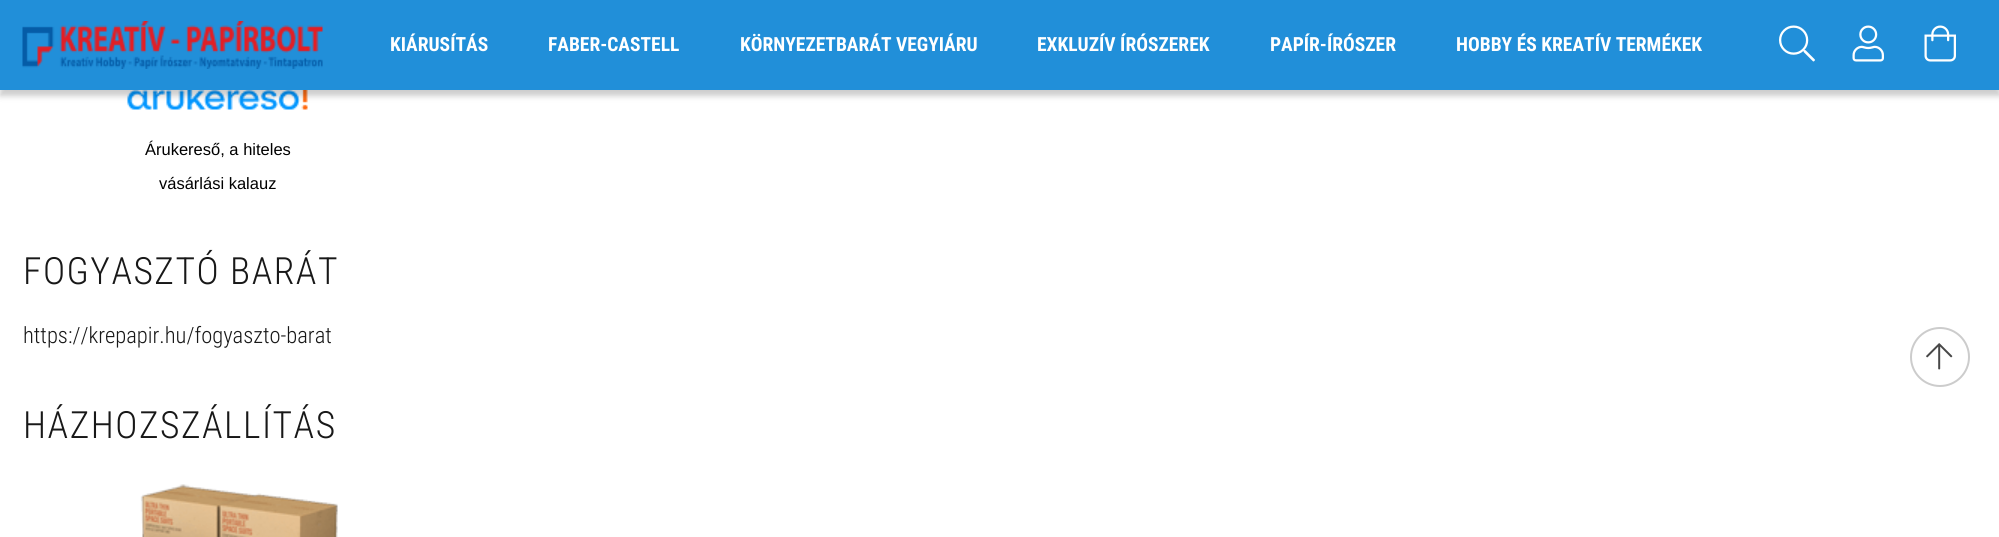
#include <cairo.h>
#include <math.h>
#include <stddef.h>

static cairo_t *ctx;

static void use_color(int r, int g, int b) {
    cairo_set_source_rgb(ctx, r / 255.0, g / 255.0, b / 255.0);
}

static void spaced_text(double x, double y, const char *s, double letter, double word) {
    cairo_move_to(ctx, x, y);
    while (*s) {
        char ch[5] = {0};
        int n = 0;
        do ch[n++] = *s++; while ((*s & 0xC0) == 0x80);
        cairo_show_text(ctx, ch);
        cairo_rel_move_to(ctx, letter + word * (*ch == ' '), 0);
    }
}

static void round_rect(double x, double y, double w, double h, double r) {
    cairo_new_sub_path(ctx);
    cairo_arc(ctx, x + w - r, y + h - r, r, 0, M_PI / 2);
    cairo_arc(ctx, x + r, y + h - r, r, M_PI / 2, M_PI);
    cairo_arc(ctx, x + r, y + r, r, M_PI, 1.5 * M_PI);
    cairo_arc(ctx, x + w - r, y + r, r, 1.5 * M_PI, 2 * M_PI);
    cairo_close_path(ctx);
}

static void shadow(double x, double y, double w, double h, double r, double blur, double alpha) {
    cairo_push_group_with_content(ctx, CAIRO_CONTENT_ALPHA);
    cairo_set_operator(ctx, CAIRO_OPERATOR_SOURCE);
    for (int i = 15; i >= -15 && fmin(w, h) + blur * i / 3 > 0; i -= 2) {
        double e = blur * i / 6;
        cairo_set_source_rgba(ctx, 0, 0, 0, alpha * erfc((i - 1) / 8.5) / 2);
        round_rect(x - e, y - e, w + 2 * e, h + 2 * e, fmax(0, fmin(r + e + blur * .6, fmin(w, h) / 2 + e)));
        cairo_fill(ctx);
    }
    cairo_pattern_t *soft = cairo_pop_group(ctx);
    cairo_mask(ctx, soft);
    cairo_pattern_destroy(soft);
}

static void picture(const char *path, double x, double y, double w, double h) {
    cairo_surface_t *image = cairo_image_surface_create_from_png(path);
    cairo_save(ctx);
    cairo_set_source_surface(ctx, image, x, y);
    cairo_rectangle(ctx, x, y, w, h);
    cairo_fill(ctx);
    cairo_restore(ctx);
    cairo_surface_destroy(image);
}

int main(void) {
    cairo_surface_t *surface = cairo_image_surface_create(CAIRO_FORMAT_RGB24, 1999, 537);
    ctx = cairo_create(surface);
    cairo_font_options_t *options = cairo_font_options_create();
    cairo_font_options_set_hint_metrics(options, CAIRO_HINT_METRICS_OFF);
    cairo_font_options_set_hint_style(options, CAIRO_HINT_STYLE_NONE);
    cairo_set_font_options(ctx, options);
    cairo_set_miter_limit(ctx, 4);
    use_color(255, 255, 255);
    cairo_paint(ctx);
    picture("img5.png", 127, 90, 181, 20);
    use_color(0, 0, 0);
    shadow(0, 6, 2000, 90, 0, 3, 0.2);
    use_color(33, 143, 217);
    cairo_rectangle(ctx, 0, 0, 1999, 90);
    cairo_fill(ctx);
    picture("img1.png", 22, 21, 301, 48);
    cairo_select_font_face(ctx, "Roboto Condensed", CAIRO_FONT_SLANT_NORMAL, CAIRO_FONT_WEIGHT_BOLD);
    cairo_set_font_size(ctx, 19.5);
    use_color(255, 255, 255);
    cairo_move_to(ctx, 390, 51);
    cairo_show_text(ctx, "KIÁRUSÍTÁS");
    cairo_move_to(ctx, 548, 51);
    cairo_show_text(ctx, "FABER-CASTELL");
    cairo_move_to(ctx, 740, 51);
    cairo_show_text(ctx, "KÖRNYEZETBARÁT VEGYIÁRU");
    cairo_move_to(ctx, 1037, 51);
    cairo_show_text(ctx, "EXKLUZÍV ÍRÓSZEREK");
    cairo_move_to(ctx, 1270, 51);
    cairo_show_text(ctx, "PAPÍR-ÍRÓSZER");
    cairo_move_to(ctx, 1456, 51);
    cairo_show_text(ctx, "HOBBY ÉS KREATÍV TERMÉKEK");
    picture("img2.png", 1779, 25, 36, 37);
    picture("img3.png", 1852, 25, 32, 37);
    picture("img4.png", 1924, 25, 32, 37);
    cairo_select_font_face(ctx, "Liberation Sans", CAIRO_FONT_SLANT_NORMAL, CAIRO_FONT_WEIGHT_NORMAL);
    cairo_set_font_size(ctx, 16.5);
    use_color(0, 0, 0);
    cairo_move_to(ctx, 145, 155);
    cairo_show_text(ctx, "Árukereső, a hiteles");
    cairo_move_to(ctx, 159, 189);
    cairo_show_text(ctx, "vásárlási kalauz");
    cairo_select_font_face(ctx, "Roboto Condensed Light", CAIRO_FONT_SLANT_NORMAL, CAIRO_FONT_WEIGHT_NORMAL);
    cairo_set_font_size(ctx, 37.5);
    use_color(24, 24, 24);
    spaced_text(23, 284, "FOGYASZTÓ BARÁT", 1.5, 0);
    cairo_set_font_size(ctx, 22.5);
    cairo_move_to(ctx, 23, 343);
    cairo_show_text(ctx, "https://krepapir.hu/fogyaszto-barat");
    cairo_set_font_size(ctx, 37.5);
    spaced_text(23, 438, "HÁZHOZSZÁLLÍTÁS", 1.5, 0);
    picture("img6.png", 140, 484, 198, 53);
    cairo_arc(ctx, 1940, 357, 29, 0, 2 * M_PI);
    use_color(204, 204, 204);
    cairo_stroke(ctx);
    picture("img7.png", 1926, 343, 27, 27);
    cairo_surface_write_to_png(surface, "result.png");
    cairo_font_options_destroy(options);
    cairo_destroy(ctx);
    cairo_surface_destroy(surface);
    return 0;
}
